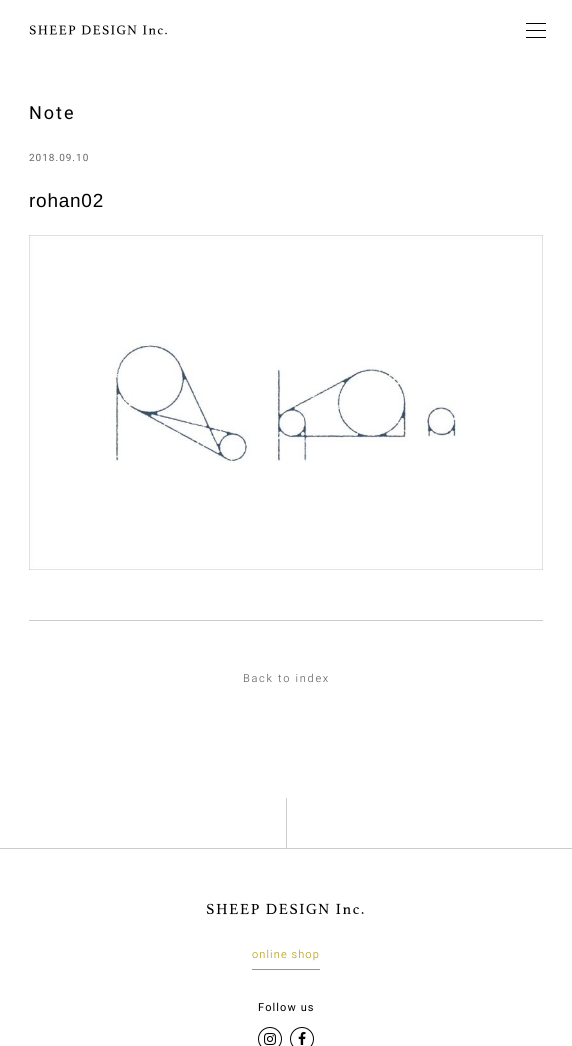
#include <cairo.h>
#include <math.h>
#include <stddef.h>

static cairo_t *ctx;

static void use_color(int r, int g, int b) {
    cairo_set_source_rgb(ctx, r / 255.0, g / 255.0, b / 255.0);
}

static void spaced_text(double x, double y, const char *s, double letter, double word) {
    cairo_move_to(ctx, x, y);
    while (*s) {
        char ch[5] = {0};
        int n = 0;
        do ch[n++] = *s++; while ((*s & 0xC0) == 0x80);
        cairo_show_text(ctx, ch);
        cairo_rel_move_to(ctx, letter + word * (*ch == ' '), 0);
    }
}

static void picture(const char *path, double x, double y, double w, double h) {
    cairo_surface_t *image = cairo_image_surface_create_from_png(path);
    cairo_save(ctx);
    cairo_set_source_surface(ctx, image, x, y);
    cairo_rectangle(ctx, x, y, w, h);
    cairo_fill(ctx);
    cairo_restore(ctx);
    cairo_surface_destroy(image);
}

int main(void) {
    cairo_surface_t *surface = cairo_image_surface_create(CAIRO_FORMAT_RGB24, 572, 1046);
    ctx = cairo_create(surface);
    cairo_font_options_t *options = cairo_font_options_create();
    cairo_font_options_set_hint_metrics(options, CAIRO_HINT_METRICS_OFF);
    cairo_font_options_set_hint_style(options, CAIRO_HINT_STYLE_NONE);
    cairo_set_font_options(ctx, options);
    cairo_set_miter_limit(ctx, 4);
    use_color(255, 255, 255);
    cairo_paint(ctx);
    picture("img1.png", 29, 25, 138, 10);
    use_color(0, 0, 0);
    cairo_rectangle(ctx, 526, 23, 20, 1);
    cairo_fill(ctx);
    cairo_rectangle(ctx, 526, 30, 20, 1);
    cairo_fill(ctx);
    cairo_rectangle(ctx, 526, 37, 20, 1);
    cairo_fill(ctx);
    cairo_select_font_face(ctx, "Heebo", CAIRO_FONT_SLANT_NORMAL, CAIRO_FONT_WEIGHT_NORMAL);
    cairo_set_font_size(ctx, 18);
    spaced_text(29, 119, "Note", 2, 0);
    use_color(204, 204, 204);
    cairo_rectangle(ctx, 29, 620, 514, 1);
    cairo_fill(ctx);
    cairo_set_font_size(ctx, 10);
    use_color(102, 102, 102);
    spaced_text(29, 161, "2018.09.10", 1, 0);
    cairo_select_font_face(ctx, "Liberation Sans", CAIRO_FONT_SLANT_NORMAL, CAIRO_FONT_WEIGHT_NORMAL);
    cairo_set_font_size(ctx, 19);
    use_color(0, 0, 0);
    spaced_text(29, 207, "rohan02", 0.75, 0);
    picture("img2.png", 29, 235, 514, 335);
    cairo_select_font_face(ctx, "Heebo Light", CAIRO_FONT_SLANT_NORMAL, CAIRO_FONT_WEIGHT_NORMAL);
    cairo_set_font_size(ctx, 11);
    use_color(102, 102, 102);
    spaced_text(243, 682, "Back to index", 1.7, 0);
    use_color(204, 204, 204);
    cairo_rectangle(ctx, 286, 798, 1, 50);
    cairo_fill(ctx);
    cairo_rectangle(ctx, 0, 848, 572, 1);
    cairo_fill(ctx);
    picture("img3.png", 206, 903, 158, 12);
    use_color(184, 158, 19);
    cairo_rectangle(ctx, 252, 969, 68, 1);
    cairo_fill(ctx);
    spaced_text(252, 958, "online shop", 1.1, 0);
    cairo_select_font_face(ctx, "Heebo", CAIRO_FONT_SLANT_NORMAL, CAIRO_FONT_WEIGHT_NORMAL);
    use_color(0, 0, 0);
    spaced_text(258, 1011, "Follow us", 1.1, 0);
    cairo_new_path(ctx);
    cairo_arc(ctx, 270, 1039, 11.5, 0, 2 * M_PI);
    cairo_set_line_width(ctx, 1);
    cairo_stroke(ctx);
    picture("img4.png", 264, 1033, 12, 12);
    cairo_arc(ctx, 302, 1039, 11.5, 0, 2 * M_PI);
    cairo_stroke(ctx);
    picture("img5.png", 298, 1032, 8, 13);
    cairo_surface_write_to_png(surface, "result.png");
    cairo_font_options_destroy(options);
    cairo_destroy(ctx);
    cairo_surface_destroy(surface);
    return 0;
}
